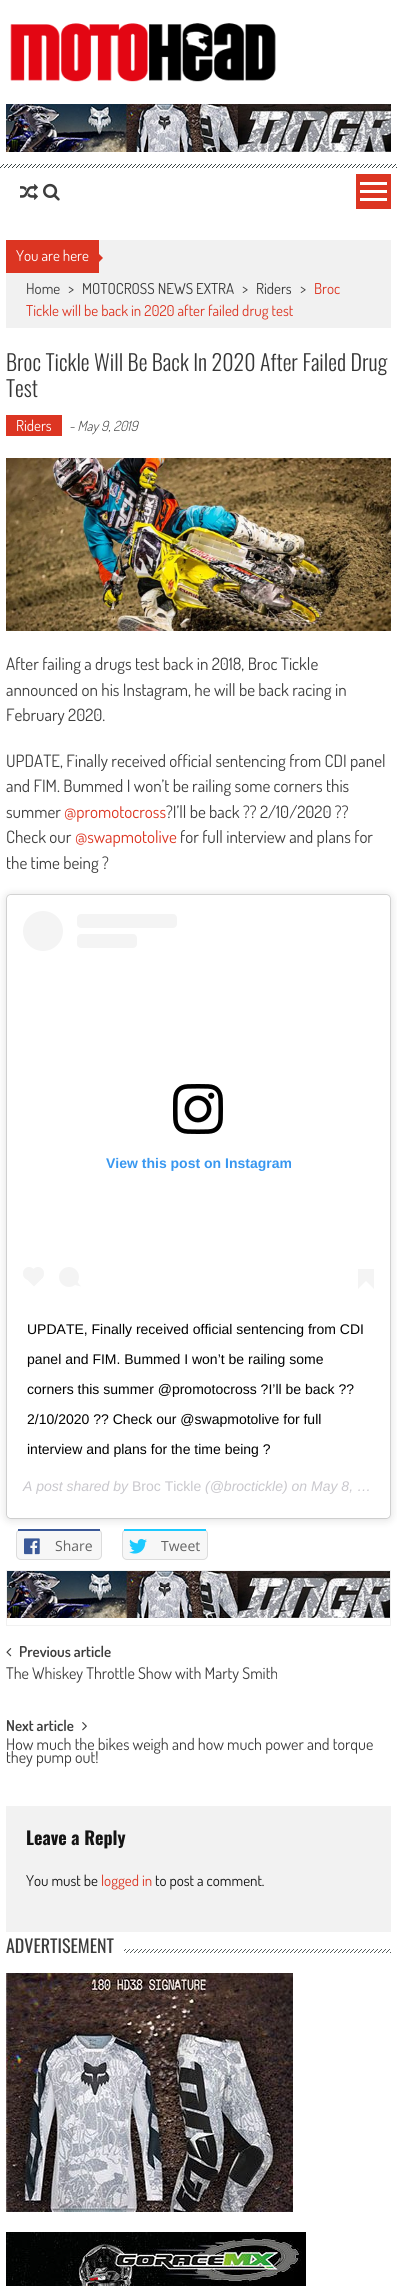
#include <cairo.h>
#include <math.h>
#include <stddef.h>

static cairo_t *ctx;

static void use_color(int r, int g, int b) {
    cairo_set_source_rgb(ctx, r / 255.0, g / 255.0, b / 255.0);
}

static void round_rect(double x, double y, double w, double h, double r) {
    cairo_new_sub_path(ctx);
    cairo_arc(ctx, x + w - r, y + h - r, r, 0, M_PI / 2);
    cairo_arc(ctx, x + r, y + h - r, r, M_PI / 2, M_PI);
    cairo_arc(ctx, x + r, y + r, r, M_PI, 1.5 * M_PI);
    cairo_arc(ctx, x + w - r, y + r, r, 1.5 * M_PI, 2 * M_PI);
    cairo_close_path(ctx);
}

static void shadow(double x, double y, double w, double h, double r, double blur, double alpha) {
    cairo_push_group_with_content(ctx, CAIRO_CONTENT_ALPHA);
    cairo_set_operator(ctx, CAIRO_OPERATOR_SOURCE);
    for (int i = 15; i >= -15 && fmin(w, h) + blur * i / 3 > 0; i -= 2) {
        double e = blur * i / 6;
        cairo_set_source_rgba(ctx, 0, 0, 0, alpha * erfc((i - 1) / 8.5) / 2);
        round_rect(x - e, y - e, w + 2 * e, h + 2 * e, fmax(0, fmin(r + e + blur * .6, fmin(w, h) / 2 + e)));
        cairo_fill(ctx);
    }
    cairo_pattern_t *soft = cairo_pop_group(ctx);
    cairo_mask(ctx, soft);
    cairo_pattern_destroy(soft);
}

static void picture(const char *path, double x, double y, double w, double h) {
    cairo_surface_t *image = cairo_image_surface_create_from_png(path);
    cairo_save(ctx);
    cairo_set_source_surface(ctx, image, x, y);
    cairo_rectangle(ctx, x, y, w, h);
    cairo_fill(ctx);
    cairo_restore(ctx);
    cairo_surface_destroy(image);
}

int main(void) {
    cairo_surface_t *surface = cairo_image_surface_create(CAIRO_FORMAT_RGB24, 397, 2286);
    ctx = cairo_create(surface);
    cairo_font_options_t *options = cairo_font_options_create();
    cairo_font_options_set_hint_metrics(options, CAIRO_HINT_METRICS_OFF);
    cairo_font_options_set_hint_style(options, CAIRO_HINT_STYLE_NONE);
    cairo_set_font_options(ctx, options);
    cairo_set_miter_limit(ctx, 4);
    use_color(255, 255, 255);
    cairo_paint(ctx);
    picture("img1.png", 0, 164, 397, 4);
    picture("img2.png", 10, 23, 266, 59);
    picture("img3.png", 6, 104, 385, 48);
    picture("img4.png", 20, 183, 18, 17);
    picture("img5.png", 43, 183, 17, 18);
    use_color(220, 53, 34);
    cairo_rectangle(ctx, 356, 174, 35, 35);
    cairo_fill(ctx);
    use_color(255, 255, 255);
    cairo_rectangle(ctx, 360, 182, 27, 3);
    cairo_fill(ctx);
    cairo_rectangle(ctx, 360, 190, 27, 3);
    cairo_fill(ctx);
    cairo_rectangle(ctx, 360, 198, 27, 3);
    cairo_fill(ctx);
    use_color(241, 241, 241);
    cairo_rectangle(ctx, 6, 240, 385, 88);
    cairo_fill(ctx);
    use_color(220, 53, 34);
    cairo_rectangle(ctx, 6, 240, 93, 33);
    cairo_fill(ctx);
    cairo_select_font_face(ctx, "Dosis", CAIRO_FONT_SLANT_NORMAL, CAIRO_FONT_WEIGHT_NORMAL);
    cairo_set_font_size(ctx, 15);
    use_color(255, 255, 255);
    cairo_move_to(ctx, 16, 261);
    cairo_show_text(ctx, "You are here");
    use_color(220, 53, 34);
    cairo_new_path(ctx);
    cairo_move_to(ctx, 98, 263);
    cairo_line_to(ctx, 98, 253);
    cairo_line_to(ctx, 103, 258);
    cairo_close_path(ctx);
    cairo_fill(ctx);
    use_color(61, 61, 61);
    cairo_move_to(ctx, 26, 294);
    cairo_show_text(ctx, "Home");
    cairo_move_to(ctx, 68, 294);
    cairo_show_text(ctx, ">");
    use_color(54, 54, 54);
    cairo_move_to(ctx, 82, 294);
    cairo_show_text(ctx, "MOTOCROSS NEWS EXTRA");
    use_color(61, 61, 61);
    cairo_move_to(ctx, 242, 294);
    cairo_show_text(ctx, ">");
    use_color(54, 54, 54);
    cairo_move_to(ctx, 256, 294);
    cairo_show_text(ctx, "Riders");
    use_color(61, 61, 61);
    cairo_move_to(ctx, 300, 294);
    cairo_show_text(ctx, ">");
    use_color(220, 53, 34);
    cairo_move_to(ctx, 314, 294);
    cairo_show_text(ctx, "Broc");
    cairo_move_to(ctx, 26, 316);
    cairo_show_text(ctx, "Tickle will be back in 2020 after failed drug test");
    cairo_select_font_face(ctx, "Oswald Light", CAIRO_FONT_SLANT_NORMAL, CAIRO_FONT_WEIGHT_NORMAL);
    cairo_set_font_size(ctx, 22);
    use_color(54, 54, 54);
    cairo_move_to(ctx, 6, 371);
    cairo_show_text(ctx, "Broc Tickle Will Be Back In 2020 After Failed Drug");
    cairo_move_to(ctx, 6, 397);
    cairo_show_text(ctx, "Test");
    use_color(220, 53, 34);
    cairo_rectangle(ctx, 6, 415, 56, 21);
    cairo_fill(ctx);
    cairo_select_font_face(ctx, "Dosis", CAIRO_FONT_SLANT_NORMAL, CAIRO_FONT_WEIGHT_NORMAL);
    cairo_set_font_size(ctx, 15);
    use_color(255, 255, 255);
    cairo_move_to(ctx, 16, 431);
    cairo_show_text(ctx, "Riders");
    cairo_select_font_face(ctx, "Dosis Light", CAIRO_FONT_SLANT_ITALIC, CAIRO_FONT_WEIGHT_NORMAL);
    cairo_set_font_size(ctx, 14);
    use_color(61, 61, 61);
    cairo_move_to(ctx, 69, 431);
    cairo_show_text(ctx, "- May 9, 2019");
    picture("img6.png", 6, 458, 385, 173);
    cairo_select_font_face(ctx, "Dosis", CAIRO_FONT_SLANT_NORMAL, CAIRO_FONT_WEIGHT_NORMAL);
    cairo_set_font_size(ctx, 17);
    cairo_move_to(ctx, 6, 670);
    cairo_show_text(ctx, "After failing a drugs test back in 2018, Broc Tickle");
    cairo_move_to(ctx, 6, 696);
    cairo_show_text(ctx, "announced on his Instagram, he will be back racing in");
    cairo_move_to(ctx, 6, 721);
    cairo_show_text(ctx, "February 2020.");
    cairo_move_to(ctx, 6, 767);
    cairo_show_text(ctx, "UPDATE, Finally received official sentencing from CDI panel");
    cairo_move_to(ctx, 6, 792);
    cairo_show_text(ctx, "and FIM. Bummed I won’t be railing some corners this");
    cairo_move_to(ctx, 6, 818);
    cairo_show_text(ctx, "summer");
    use_color(220, 53, 34);
    cairo_move_to(ctx, 64, 818);
    cairo_show_text(ctx, "@promotocross");
    use_color(61, 61, 61);
    cairo_move_to(ctx, 166, 818);
    cairo_show_text(ctx, "?I’ll be back ?\077 2/10/2020 ?\077");
    cairo_move_to(ctx, 6, 843);
    cairo_show_text(ctx, "Check our");
    use_color(220, 53, 34);
    cairo_move_to(ctx, 75, 843);
    cairo_show_text(ctx, "@swapmotolive");
    use_color(61, 61, 61);
    cairo_move_to(ctx, 180, 843);
    cairo_show_text(ctx, "for full interview and plans for");
    cairo_move_to(ctx, 6, 869);
    cairo_show_text(ctx, "the time being ?");
    use_color(0, 0, 0);
    shadow(7, 896, 383, 623, 3, 5, 0.15);
    shadow(7, 895, 383, 623, 3, 0.5, 0.5);
    use_color(255, 255, 255);
    round_rect(7, 895, 383, 623, 3);
    cairo_fill(ctx);
    use_color(244, 244, 244);
    cairo_arc(ctx, 43, 931, 20, 0, 2 * M_PI);
    cairo_fill(ctx);
    round_rect(77, 914, 100, 14, 4);
    cairo_fill(ctx);
    round_rect(77, 934, 60, 14, 4);
    cairo_fill(ctx);
    picture("img7.png", 173, 1084, 50, 50);
    cairo_select_font_face(ctx, "Liberation Sans", CAIRO_FONT_SLANT_NORMAL, CAIRO_FONT_WEIGHT_BOLD);
    cairo_set_font_size(ctx, 14);
    use_color(56, 151, 240);
    cairo_move_to(ctx, 106, 1168);
    cairo_show_text(ctx, "View this post on Instagram");
    use_color(244, 244, 244);
    round_rect(23, 1267, 12, 13, 6);
    cairo_fill(ctx);
    cairo_new_path(ctx);
    cairo_move_to(ctx, 25, 1277.5);
    cairo_line_to(ctx, 34, 1268.5);
    cairo_line_to(ctx, 43, 1277.5);
    cairo_line_to(ctx, 34, 1286.5);
    cairo_close_path(ctx);
    cairo_fill(ctx);
    round_rect(32, 1267, 12, 13, 6);
    cairo_fill(ctx);
    cairo_arc(ctx, 69, 1277, 10, 0, 2 * M_PI);
    cairo_fill(ctx);
    cairo_new_path(ctx);
    cairo_move_to(ctx, 75, 1285);
    cairo_line_to(ctx, 77, 1281.5);
    cairo_line_to(ctx, 81, 1286.5);
    cairo_close_path(ctx);
    cairo_fill(ctx);
    cairo_rectangle(ctx, 358, 1269, 16, 12);
    cairo_fill(ctx);
    cairo_new_path(ctx);
    cairo_move_to(ctx, 358, 1281);
    cairo_line_to(ctx, 366, 1281);
    cairo_line_to(ctx, 358, 1289);
    cairo_close_path(ctx);
    cairo_fill(ctx);
    cairo_new_path(ctx);
    cairo_move_to(ctx, 366, 1281);
    cairo_line_to(ctx, 374, 1281);
    cairo_line_to(ctx, 374, 1289);
    cairo_close_path(ctx);
    cairo_fill(ctx);
    cairo_select_font_face(ctx, "Liberation Sans", CAIRO_FONT_SLANT_NORMAL, CAIRO_FONT_WEIGHT_NORMAL);
    use_color(0, 0, 0);
    cairo_move_to(ctx, 27, 1334);
    cairo_show_text(ctx, "UPDATE, Finally received official sentencing from CDI");
    cairo_move_to(ctx, 27, 1364);
    cairo_show_text(ctx, "panel and FIM. Bummed I won’t be railing some");
    cairo_move_to(ctx, 27, 1394);
    cairo_show_text(ctx, "corners this summer @promotocross ?I’ll be back ?\077");
    cairo_move_to(ctx, 27, 1424);
    cairo_show_text(ctx, "2/10/2020 ?\077 Check our @swapmotolive for full");
    cairo_move_to(ctx, 27, 1454);
    cairo_show_text(ctx, "interview and plans for the time being ?");
    cairo_select_font_face(ctx, "Liberation Sans", CAIRO_FONT_SLANT_ITALIC, CAIRO_FONT_WEIGHT_NORMAL);
    use_color(201, 200, 205);
    cairo_move_to(ctx, 23, 1491);
    cairo_show_text(ctx, "A post shared by");
    cairo_select_font_face(ctx, "Liberation Sans", CAIRO_FONT_SLANT_NORMAL, CAIRO_FONT_WEIGHT_NORMAL);
    cairo_move_to(ctx, 132, 1491);
    cairo_show_text(ctx, "Broc Tickle");
    cairo_select_font_face(ctx, "Liberation Sans", CAIRO_FONT_SLANT_ITALIC, CAIRO_FONT_WEIGHT_NORMAL);
    cairo_move_to(ctx, 205, 1491);
    cairo_show_text(ctx, "(@broctickle) on May 8, …");
    use_color(247, 247, 247);
    round_rect(16.5, 1529.5, 85, 30, 4.5);
    cairo_fill_preserve(ctx);
    use_color(220, 220, 220);
    cairo_set_line_width(ctx, 1);
    cairo_stroke(ctx);
    use_color(59, 89, 152);
    cairo_rectangle(ctx, 18, 1529, 82, 2);
    cairo_fill(ctx);
    picture("img8.png", 24, 1538, 16, 17);
    cairo_select_font_face(ctx, "Open Sans", CAIRO_FONT_SLANT_NORMAL, CAIRO_FONT_WEIGHT_NORMAL);
    use_color(99, 99, 99);
    cairo_move_to(ctx, 55, 1551);
    cairo_show_text(ctx, "Share");
    use_color(247, 247, 247);
    round_rect(122.5, 1529.5, 85, 30, 4.5);
    cairo_fill_preserve(ctx);
    use_color(220, 220, 220);
    cairo_stroke(ctx);
    use_color(29, 202, 255);
    cairo_rectangle(ctx, 124, 1529, 82, 2);
    cairo_fill(ctx);
    picture("img9.png", 129, 1538, 18, 16);
    use_color(99, 99, 99);
    cairo_move_to(ctx, 161, 1551);
    cairo_show_text(ctx, "Tweet");
    cairo_rectangle(ctx, 6.5, 1570.5, 384, 55);
    use_color(241, 241, 241);
    cairo_stroke(ctx);
    picture("img10.png", 7, 1571, 383, 47);
    picture("img11.png", 6, 1648, 6, 9);
    cairo_select_font_face(ctx, "Dosis SemiBold", CAIRO_FONT_SLANT_NORMAL, CAIRO_FONT_WEIGHT_NORMAL);
    cairo_set_font_size(ctx, 15);
    use_color(61, 61, 61);
    cairo_move_to(ctx, 19, 1657);
    cairo_show_text(ctx, "Previous article");
    cairo_select_font_face(ctx, "Dosis", CAIRO_FONT_SLANT_NORMAL, CAIRO_FONT_WEIGHT_NORMAL);
    cairo_set_font_size(ctx, 16);
    cairo_move_to(ctx, 6, 1679);
    cairo_show_text(ctx, "The Whiskey Throttle Show with Marty Smith");
    cairo_select_font_face(ctx, "Dosis SemiBold", CAIRO_FONT_SLANT_NORMAL, CAIRO_FONT_WEIGHT_NORMAL);
    cairo_set_font_size(ctx, 15);
    cairo_move_to(ctx, 6, 1731);
    cairo_show_text(ctx, "Next article");
    picture("img12.png", 82, 1722, 5, 9);
    cairo_select_font_face(ctx, "Dosis", CAIRO_FONT_SLANT_NORMAL, CAIRO_FONT_WEIGHT_NORMAL);
    cairo_set_font_size(ctx, 16);
    cairo_move_to(ctx, 6, 1750);
    cairo_show_text(ctx, "How much the bikes weigh and how much power and torque");
    cairo_move_to(ctx, 6, 1763);
    cairo_show_text(ctx, "they pump out!");
    use_color(242, 242, 242);
    cairo_rectangle(ctx, 6, 1806, 385, 126);
    cairo_fill(ctx);
    cairo_select_font_face(ctx, "Oswald", CAIRO_FONT_SLANT_NORMAL, CAIRO_FONT_WEIGHT_BOLD);
    cairo_set_font_size(ctx, 18);
    use_color(20, 20, 20);
    cairo_move_to(ctx, 26, 1845);
    cairo_show_text(ctx, "Leave a Reply");
    cairo_select_font_face(ctx, "Dosis", CAIRO_FONT_SLANT_NORMAL, CAIRO_FONT_WEIGHT_NORMAL);
    cairo_set_font_size(ctx, 15);
    cairo_move_to(ctx, 26, 1886);
    cairo_show_text(ctx, "You must be");
    use_color(220, 53, 34);
    cairo_move_to(ctx, 101, 1886);
    cairo_show_text(ctx, "logged in");
    use_color(20, 20, 20);
    cairo_move_to(ctx, 155, 1886);
    cairo_show_text(ctx, "to post a comment.");
    picture("img13.png", 124, 1949, 267, 4);
    cairo_select_font_face(ctx, "Oswald", CAIRO_FONT_SLANT_NORMAL, CAIRO_FONT_WEIGHT_NORMAL);
    cairo_set_font_size(ctx, 18);
    use_color(61, 61, 61);
    cairo_move_to(ctx, 6, 1953);
    cairo_show_text(ctx, "ADVERTISEMENT");
    picture("img14.png", 6, 1973, 287, 239);
    picture("img15.png", 6, 2232, 300, 54);
    cairo_surface_write_to_png(surface, "result.png");
    cairo_font_options_destroy(options);
    cairo_destroy(ctx);
    cairo_surface_destroy(surface);
    return 0;
}
